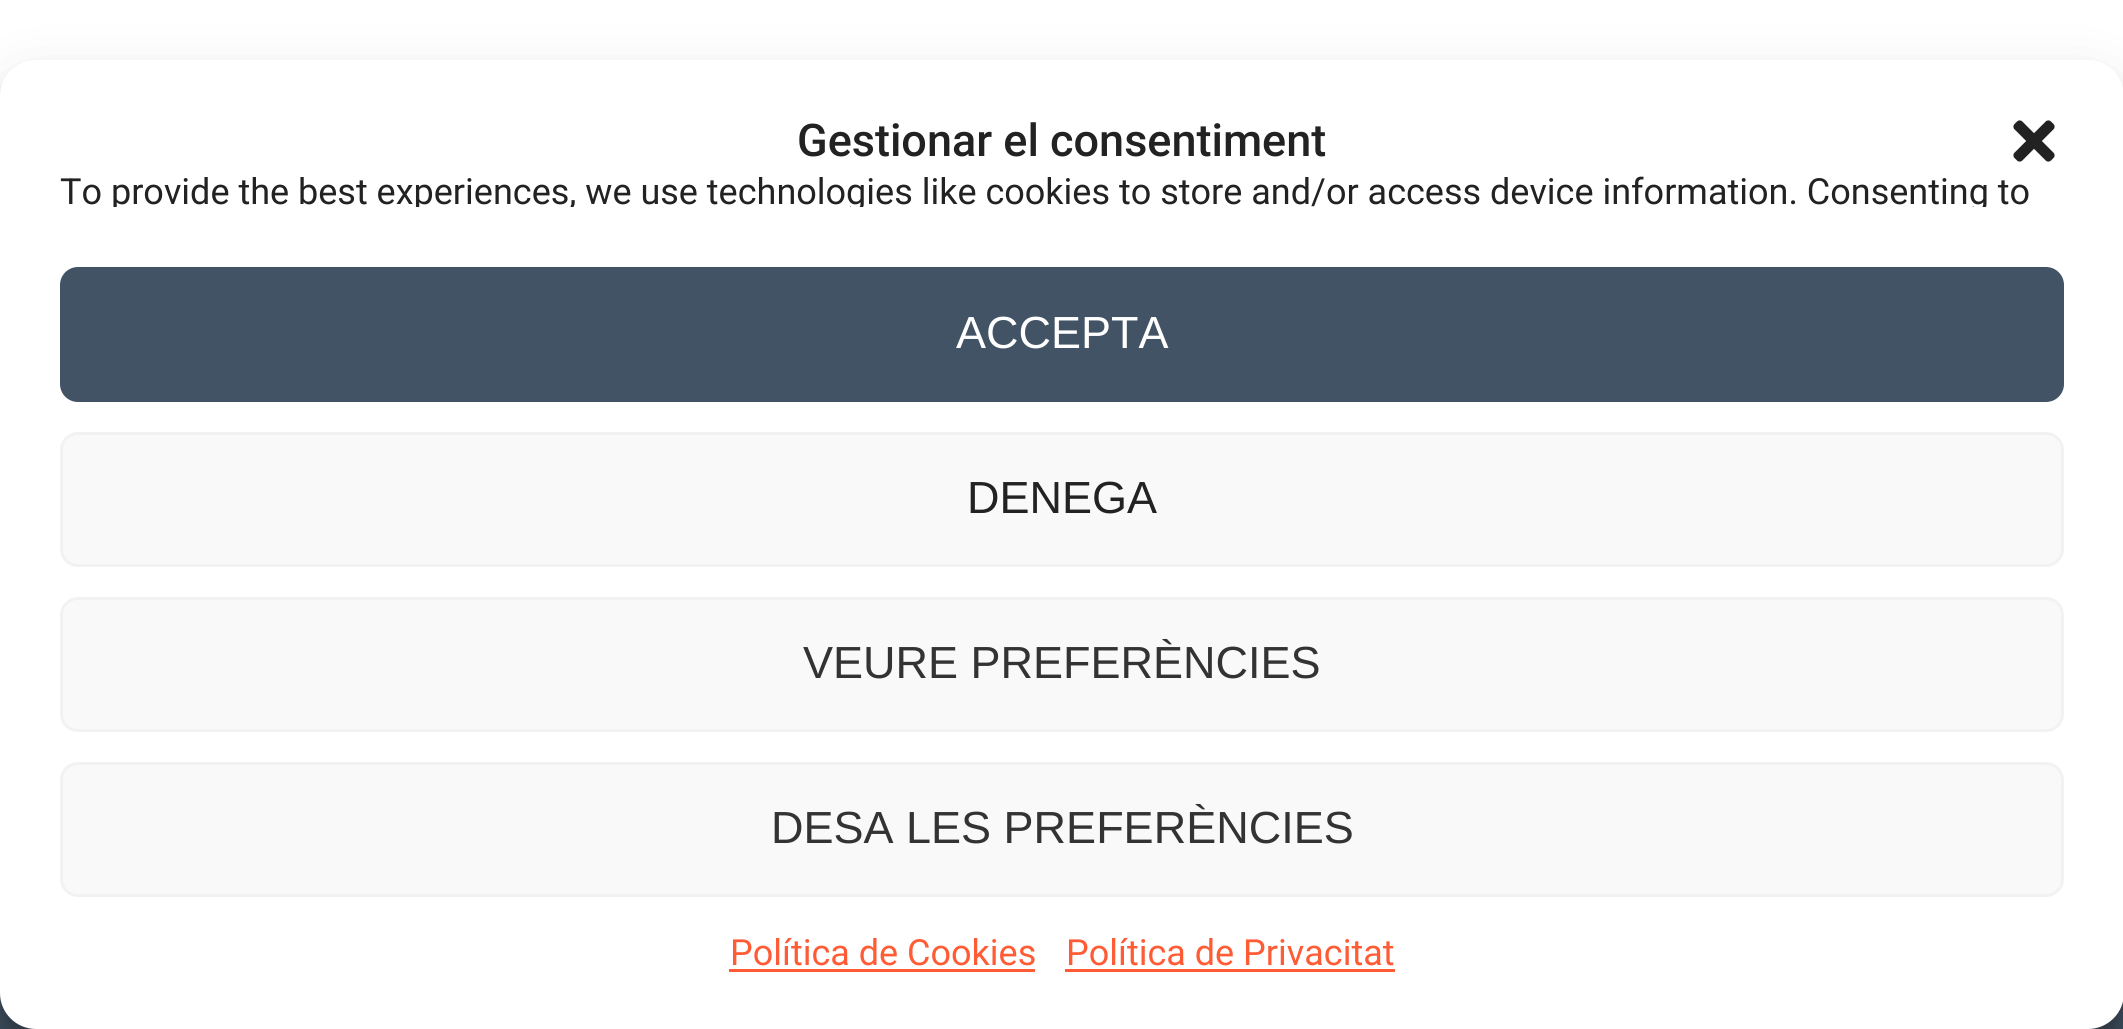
#include <cairo.h>
#include <math.h>
#include <stddef.h>

static cairo_t *ctx;

static void use_color(int r, int g, int b) {
    cairo_set_source_rgb(ctx, r / 255.0, g / 255.0, b / 255.0);
}

static void round_rect(double x, double y, double w, double h, double r) {
    cairo_new_sub_path(ctx);
    cairo_arc(ctx, x + w - r, y + h - r, r, 0, M_PI / 2);
    cairo_arc(ctx, x + r, y + h - r, r, M_PI / 2, M_PI);
    cairo_arc(ctx, x + r, y + r, r, M_PI, 1.5 * M_PI);
    cairo_arc(ctx, x + w - r, y + r, r, 1.5 * M_PI, 2 * M_PI);
    cairo_close_path(ctx);
}

static void shadow(double x, double y, double w, double h, double r, double blur, double alpha) {
    cairo_push_group_with_content(ctx, CAIRO_CONTENT_ALPHA);
    cairo_set_operator(ctx, CAIRO_OPERATOR_SOURCE);
    for (int i = 15; i >= -15 && fmin(w, h) + blur * i / 3 > 0; i -= 2) {
        double e = blur * i / 6;
        cairo_set_source_rgba(ctx, 0, 0, 0, alpha * erfc((i - 1) / 8.5) / 2);
        round_rect(x - e, y - e, w + 2 * e, h + 2 * e, fmax(0, fmin(r + e + blur * .6, fmin(w, h) / 2 + e)));
        cairo_fill(ctx);
    }
    cairo_pattern_t *soft = cairo_pop_group(ctx);
    cairo_mask(ctx, soft);
    cairo_pattern_destroy(soft);
}

static void picture(const char *path, double x, double y, double w, double h) {
    cairo_surface_t *image = cairo_image_surface_create_from_png(path);
    cairo_save(ctx);
    cairo_set_source_surface(ctx, image, x, y);
    cairo_rectangle(ctx, x, y, w, h);
    cairo_fill(ctx);
    cairo_restore(ctx);
    cairo_surface_destroy(image);
}

int main(void) {
    cairo_surface_t *surface = cairo_image_surface_create(CAIRO_FORMAT_RGB24, 2123, 1029);
    ctx = cairo_create(surface);
    cairo_font_options_t *options = cairo_font_options_create();
    cairo_font_options_set_hint_metrics(options, CAIRO_HINT_METRICS_OFF);
    cairo_font_options_set_hint_style(options, CAIRO_HINT_STYLE_NONE);
    cairo_set_font_options(ctx, options);
    cairo_set_miter_limit(ctx, 4);
    use_color(255, 255, 255);
    cairo_paint(ctx);
    use_color(65, 83, 100);
    cairo_rectangle(ctx, 0, 993, 2123, 36);
    cairo_fill(ctx);
    use_color(0, 0, 0);
    shadow(0, 78, 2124, 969, 36, 9, 0.23);
    shadow(0, 90, 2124, 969, 36, 30, 0.19);
    use_color(255, 255, 255);
    round_rect(0, 60, 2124, 969, 36);
    cairo_fill(ctx);
    cairo_select_font_face(ctx, "Roboto Medium", CAIRO_FONT_SLANT_NORMAL, CAIRO_FONT_WEIGHT_NORMAL);
    cairo_set_font_size(ctx, 45);
    use_color(34, 34, 34);
    cairo_move_to(ctx, 797, 156);
    cairo_show_text(ctx, "Gestionar el consentiment");
    picture("img1.png", 2013, 120, 42, 42);
    cairo_save(ctx);
    cairo_rectangle(ctx, 60, 165, 2004, 42);
    cairo_clip(ctx);
    cairo_select_font_face(ctx, "Roboto", CAIRO_FONT_SLANT_NORMAL, CAIRO_FONT_WEIGHT_NORMAL);
    cairo_set_font_size(ctx, 36);
    cairo_move_to(ctx, 60, 204);
    cairo_show_text(ctx, "To provide the best experiences, we use technologies like cookies to store and/or access device information. Consenting to");
    cairo_restore(ctx);
    use_color(65, 83, 100);
    round_rect(61.5, 268.5, 2001, 132, 16.5);
    cairo_fill_preserve(ctx);
    cairo_set_line_width(ctx, 3);
    cairo_stroke(ctx);
    cairo_select_font_face(ctx, "Liberation Sans", CAIRO_FONT_SLANT_NORMAL, CAIRO_FONT_WEIGHT_NORMAL);
    use_color(255, 255, 255);
    cairo_move_to(ctx, 956, 348);
    cairo_show_text(ctx, "ACCEPTA");
    use_color(249, 249, 249);
    round_rect(61.5, 433.5, 2001, 132, 16.5);
    cairo_fill_preserve(ctx);
    use_color(242, 242, 242);
    cairo_stroke(ctx);
    use_color(34, 34, 34);
    cairo_move_to(ctx, 967, 513);
    cairo_show_text(ctx, "DENEGA");
    use_color(249, 249, 249);
    round_rect(61.5, 598.5, 2001, 132, 16.5);
    cairo_fill_preserve(ctx);
    use_color(242, 242, 242);
    cairo_stroke(ctx);
    use_color(51, 51, 51);
    cairo_move_to(ctx, 803, 678);
    cairo_show_text(ctx, "VEURE PREFERÈNCIES");
    use_color(249, 249, 249);
    round_rect(61.5, 763.5, 2001, 132, 16.5);
    cairo_fill_preserve(ctx);
    use_color(242, 242, 242);
    cairo_stroke(ctx);
    use_color(51, 51, 51);
    cairo_move_to(ctx, 771, 843);
    cairo_show_text(ctx, "DESA LES PREFERÈNCIES");
    cairo_select_font_face(ctx, "Roboto", CAIRO_FONT_SLANT_NORMAL, CAIRO_FONT_WEIGHT_NORMAL);
    cairo_set_font_size(ctx, 36);
    use_color(255, 92, 53);
    cairo_move_to(ctx, 730, 965);
    cairo_show_text(ctx, "Política de Cookies");
    cairo_rectangle(ctx, 729, 969, 306, 3);
    cairo_fill(ctx);
    cairo_move_to(ctx, 1066, 965);
    cairo_show_text(ctx, "Política de Privacitat");
    cairo_rectangle(ctx, 1065, 969, 330, 3);
    cairo_fill(ctx);
    cairo_surface_write_to_png(surface, "result.png");
    cairo_font_options_destroy(options);
    cairo_destroy(ctx);
    cairo_surface_destroy(surface);
    return 0;
}
